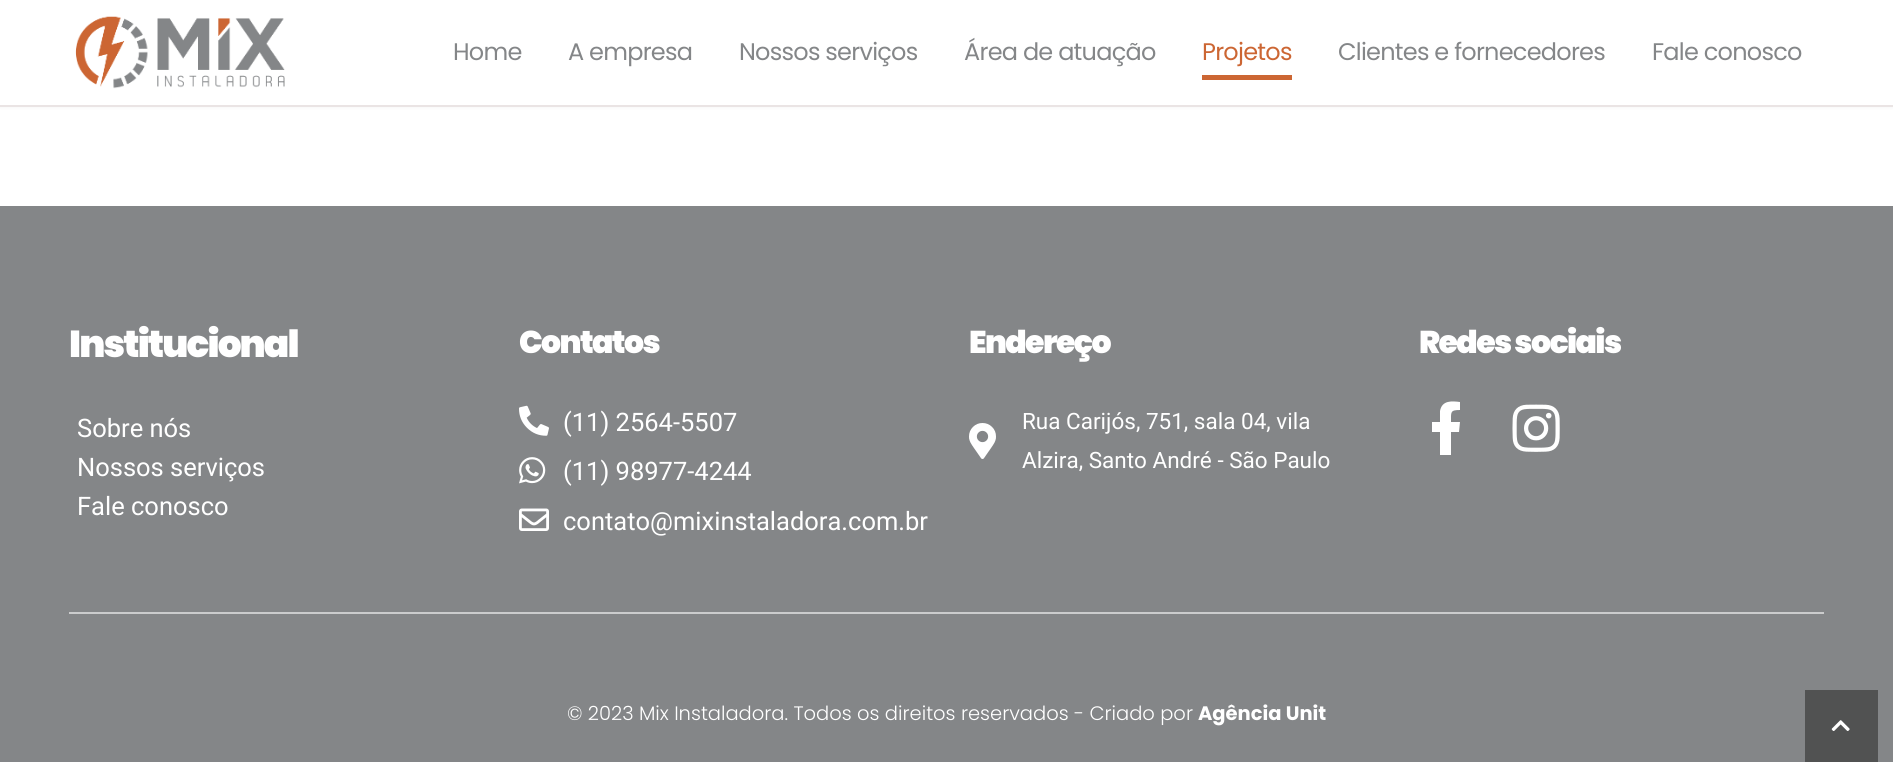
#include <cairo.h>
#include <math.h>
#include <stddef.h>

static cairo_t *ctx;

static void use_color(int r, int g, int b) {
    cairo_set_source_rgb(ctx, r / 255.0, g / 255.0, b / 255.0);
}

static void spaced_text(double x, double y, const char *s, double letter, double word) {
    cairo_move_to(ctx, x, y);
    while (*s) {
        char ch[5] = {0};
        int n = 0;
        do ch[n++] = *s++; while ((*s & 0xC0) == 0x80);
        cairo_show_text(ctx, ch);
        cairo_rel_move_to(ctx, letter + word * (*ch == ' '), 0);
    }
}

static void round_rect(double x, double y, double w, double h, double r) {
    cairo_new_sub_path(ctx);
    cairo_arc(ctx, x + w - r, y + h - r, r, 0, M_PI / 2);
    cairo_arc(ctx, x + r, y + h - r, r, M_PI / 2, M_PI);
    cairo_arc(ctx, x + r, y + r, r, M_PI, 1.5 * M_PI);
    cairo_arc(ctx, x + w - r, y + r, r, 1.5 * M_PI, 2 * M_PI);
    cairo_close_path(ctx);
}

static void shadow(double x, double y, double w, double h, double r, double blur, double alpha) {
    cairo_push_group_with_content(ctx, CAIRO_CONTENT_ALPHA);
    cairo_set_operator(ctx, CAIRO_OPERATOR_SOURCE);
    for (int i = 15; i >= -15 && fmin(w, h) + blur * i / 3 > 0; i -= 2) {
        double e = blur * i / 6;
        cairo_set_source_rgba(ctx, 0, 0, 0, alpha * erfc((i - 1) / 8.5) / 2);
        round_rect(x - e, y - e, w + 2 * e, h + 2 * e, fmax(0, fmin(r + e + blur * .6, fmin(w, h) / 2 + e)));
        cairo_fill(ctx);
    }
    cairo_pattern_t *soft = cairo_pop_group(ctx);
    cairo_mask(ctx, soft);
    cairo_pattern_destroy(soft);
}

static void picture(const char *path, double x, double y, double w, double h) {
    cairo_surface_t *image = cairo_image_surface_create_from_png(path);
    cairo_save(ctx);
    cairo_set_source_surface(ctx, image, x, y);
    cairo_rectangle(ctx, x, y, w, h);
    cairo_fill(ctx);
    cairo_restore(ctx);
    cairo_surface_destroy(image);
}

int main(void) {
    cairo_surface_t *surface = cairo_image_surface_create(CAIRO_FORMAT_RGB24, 1893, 762);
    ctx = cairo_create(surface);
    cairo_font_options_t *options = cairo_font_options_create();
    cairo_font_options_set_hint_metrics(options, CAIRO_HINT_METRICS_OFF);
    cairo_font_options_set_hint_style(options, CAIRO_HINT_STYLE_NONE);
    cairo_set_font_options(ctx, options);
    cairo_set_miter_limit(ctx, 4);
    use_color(255, 255, 255);
    cairo_paint(ctx);
    use_color(0, 0, 0);
    shadow(0, 0, 1893, 107, 0, 2, 0.06);
    use_color(255, 255, 255);
    cairo_rectangle(ctx, 0, 0, 1893, 105);
    cairo_fill(ctx);
    use_color(234, 228, 228);
    cairo_rectangle(ctx, 0, 105, 1893, 2);
    cairo_fill(ctx);
    picture("img1.png", 75, 16, 210, 73);
    cairo_select_font_face(ctx, "Poppins", CAIRO_FONT_SLANT_NORMAL, CAIRO_FONT_WEIGHT_NORMAL);
    cairo_set_font_size(ctx, 24);
    use_color(132, 134, 136);
    spaced_text(453, 60, "Home", -0.75, 0);
    spaced_text(568, 60, "A empresa", -0.75, 0);
    spaced_text(739, 60, "Nossos serviços", -0.75, 0);
    spaced_text(964, 60, "Área de atuação", -0.75, 0);
    use_color(204, 102, 51);
    spaced_text(1202, 60, "Projetos", -0.75, 0);
    cairo_rectangle(ctx, 1202, 75, 90, 5);
    cairo_fill(ctx);
    use_color(132, 134, 136);
    spaced_text(1338, 60, "Clientes e fornecedores", -0.75, 0);
    spaced_text(1652, 60, "Fale conosco", -0.75, 0);
    cairo_rectangle(ctx, 0, 206, 1893, 556);
    cairo_fill(ctx);
    cairo_select_font_face(ctx, "Poppins Black", CAIRO_FONT_SLANT_NORMAL, CAIRO_FONT_WEIGHT_NORMAL);
    cairo_set_font_size(ctx, 37.5);
    use_color(255, 255, 255);
    spaced_text(69, 357, "Institucional", -1.9, 0);
    cairo_select_font_face(ctx, "Roboto", CAIRO_FONT_SLANT_NORMAL, CAIRO_FONT_WEIGHT_NORMAL);
    cairo_set_font_size(ctx, 25.5);
    cairo_move_to(ctx, 77, 437);
    cairo_show_text(ctx, "Sobre nós");
    cairo_move_to(ctx, 77, 476);
    cairo_show_text(ctx, "Nossos serviços");
    cairo_move_to(ctx, 77, 515);
    cairo_show_text(ctx, "Fale conosco");
    cairo_select_font_face(ctx, "Poppins Black", CAIRO_FONT_SLANT_NORMAL, CAIRO_FONT_WEIGHT_NORMAL);
    cairo_set_font_size(ctx, 31.5);
    spaced_text(519, 353, "Contatos", -1.6, 0);
    picture("img2.png", 519, 405, 30, 31);
    cairo_select_font_face(ctx, "Roboto", CAIRO_FONT_SLANT_NORMAL, CAIRO_FONT_WEIGHT_NORMAL);
    cairo_set_font_size(ctx, 25.5);
    cairo_move_to(ctx, 563, 431);
    cairo_show_text(ctx, "(11) 2564-5507");
    picture("img3.png", 519, 457, 27, 27);
    cairo_move_to(ctx, 563, 480);
    cairo_show_text(ctx, "(11) 98977-4244");
    picture("img4.png", 519, 508, 30, 23);
    cairo_move_to(ctx, 563, 530);
    cairo_show_text(ctx, "contato@mixinstaladora.com.br");
    cairo_select_font_face(ctx, "Poppins Black", CAIRO_FONT_SLANT_NORMAL, CAIRO_FONT_WEIGHT_NORMAL);
    cairo_set_font_size(ctx, 31.5);
    spaced_text(969, 353, "Endereço", -1.6, 0);
    picture("img5.png", 969, 423, 27, 36);
    cairo_select_font_face(ctx, "Roboto", CAIRO_FONT_SLANT_NORMAL, CAIRO_FONT_WEIGHT_NORMAL);
    cairo_set_font_size(ctx, 22.5);
    cairo_move_to(ctx, 1022, 429);
    cairo_show_text(ctx, "Rua Carijós, 751, sala 04, vila");
    cairo_move_to(ctx, 1022, 468);
    cairo_show_text(ctx, "Alzira, Santo André - São Paulo");
    cairo_select_font_face(ctx, "Poppins Black", CAIRO_FONT_SLANT_NORMAL, CAIRO_FONT_WEIGHT_NORMAL);
    cairo_set_font_size(ctx, 31.5);
    spaced_text(1419, 353, "Redes sociais", -1.6, 0);
    cairo_new_path(ctx);
    cairo_move_to(ctx, 1459, 432);
    cairo_line_to(ctx, 1451, 432);
    cairo_line_to(ctx, 1451, 455);
    cairo_line_to(ctx, 1440, 455);
    cairo_line_to(ctx, 1440, 432);
    cairo_line_to(ctx, 1432, 432);
    cairo_line_to(ctx, 1432, 422);
    cairo_line_to(ctx, 1440, 422);
    cairo_line_to(ctx, 1440, 411);
    cairo_curve_to(ctx, 1442, 400, 1452, 401, 1460, 402);
    cairo_line_to(ctx, 1460, 410);
    cairo_curve_to(ctx, 1450, 410, 1451, 412, 1451, 422);
    cairo_line_to(ctx, 1460, 422);
    cairo_close_path(ctx);
    cairo_fill(ctx);
    picture("img6.png", 1512, 404, 48, 48);
    use_color(203, 204, 205);
    cairo_rectangle(ctx, 69, 612, 1755, 2);
    cairo_fill(ctx);
    cairo_select_font_face(ctx, "Poppins Light", CAIRO_FONT_SLANT_NORMAL, CAIRO_FONT_WEIGHT_NORMAL);
    cairo_set_font_size(ctx, 19.5);
    use_color(255, 255, 255);
    cairo_move_to(ctx, 567, 720);
    cairo_show_text(ctx, "© 2023 Mix Instaladora. Todos os direitos reservados - Criado por");
    cairo_select_font_face(ctx, "Poppins", CAIRO_FONT_SLANT_NORMAL, CAIRO_FONT_WEIGHT_BOLD);
    cairo_move_to(ctx, 1198, 720);
    cairo_show_text(ctx, "Agência Unit");
    use_color(81, 82, 82);
    cairo_rectangle(ctx, 1805, 690, 73, 72);
    cairo_fill(ctx);
    picture("img7.png", 1831, 720, 19, 11);
    cairo_surface_write_to_png(surface, "result.png");
    cairo_font_options_destroy(options);
    cairo_destroy(ctx);
    cairo_surface_destroy(surface);
    return 0;
}
